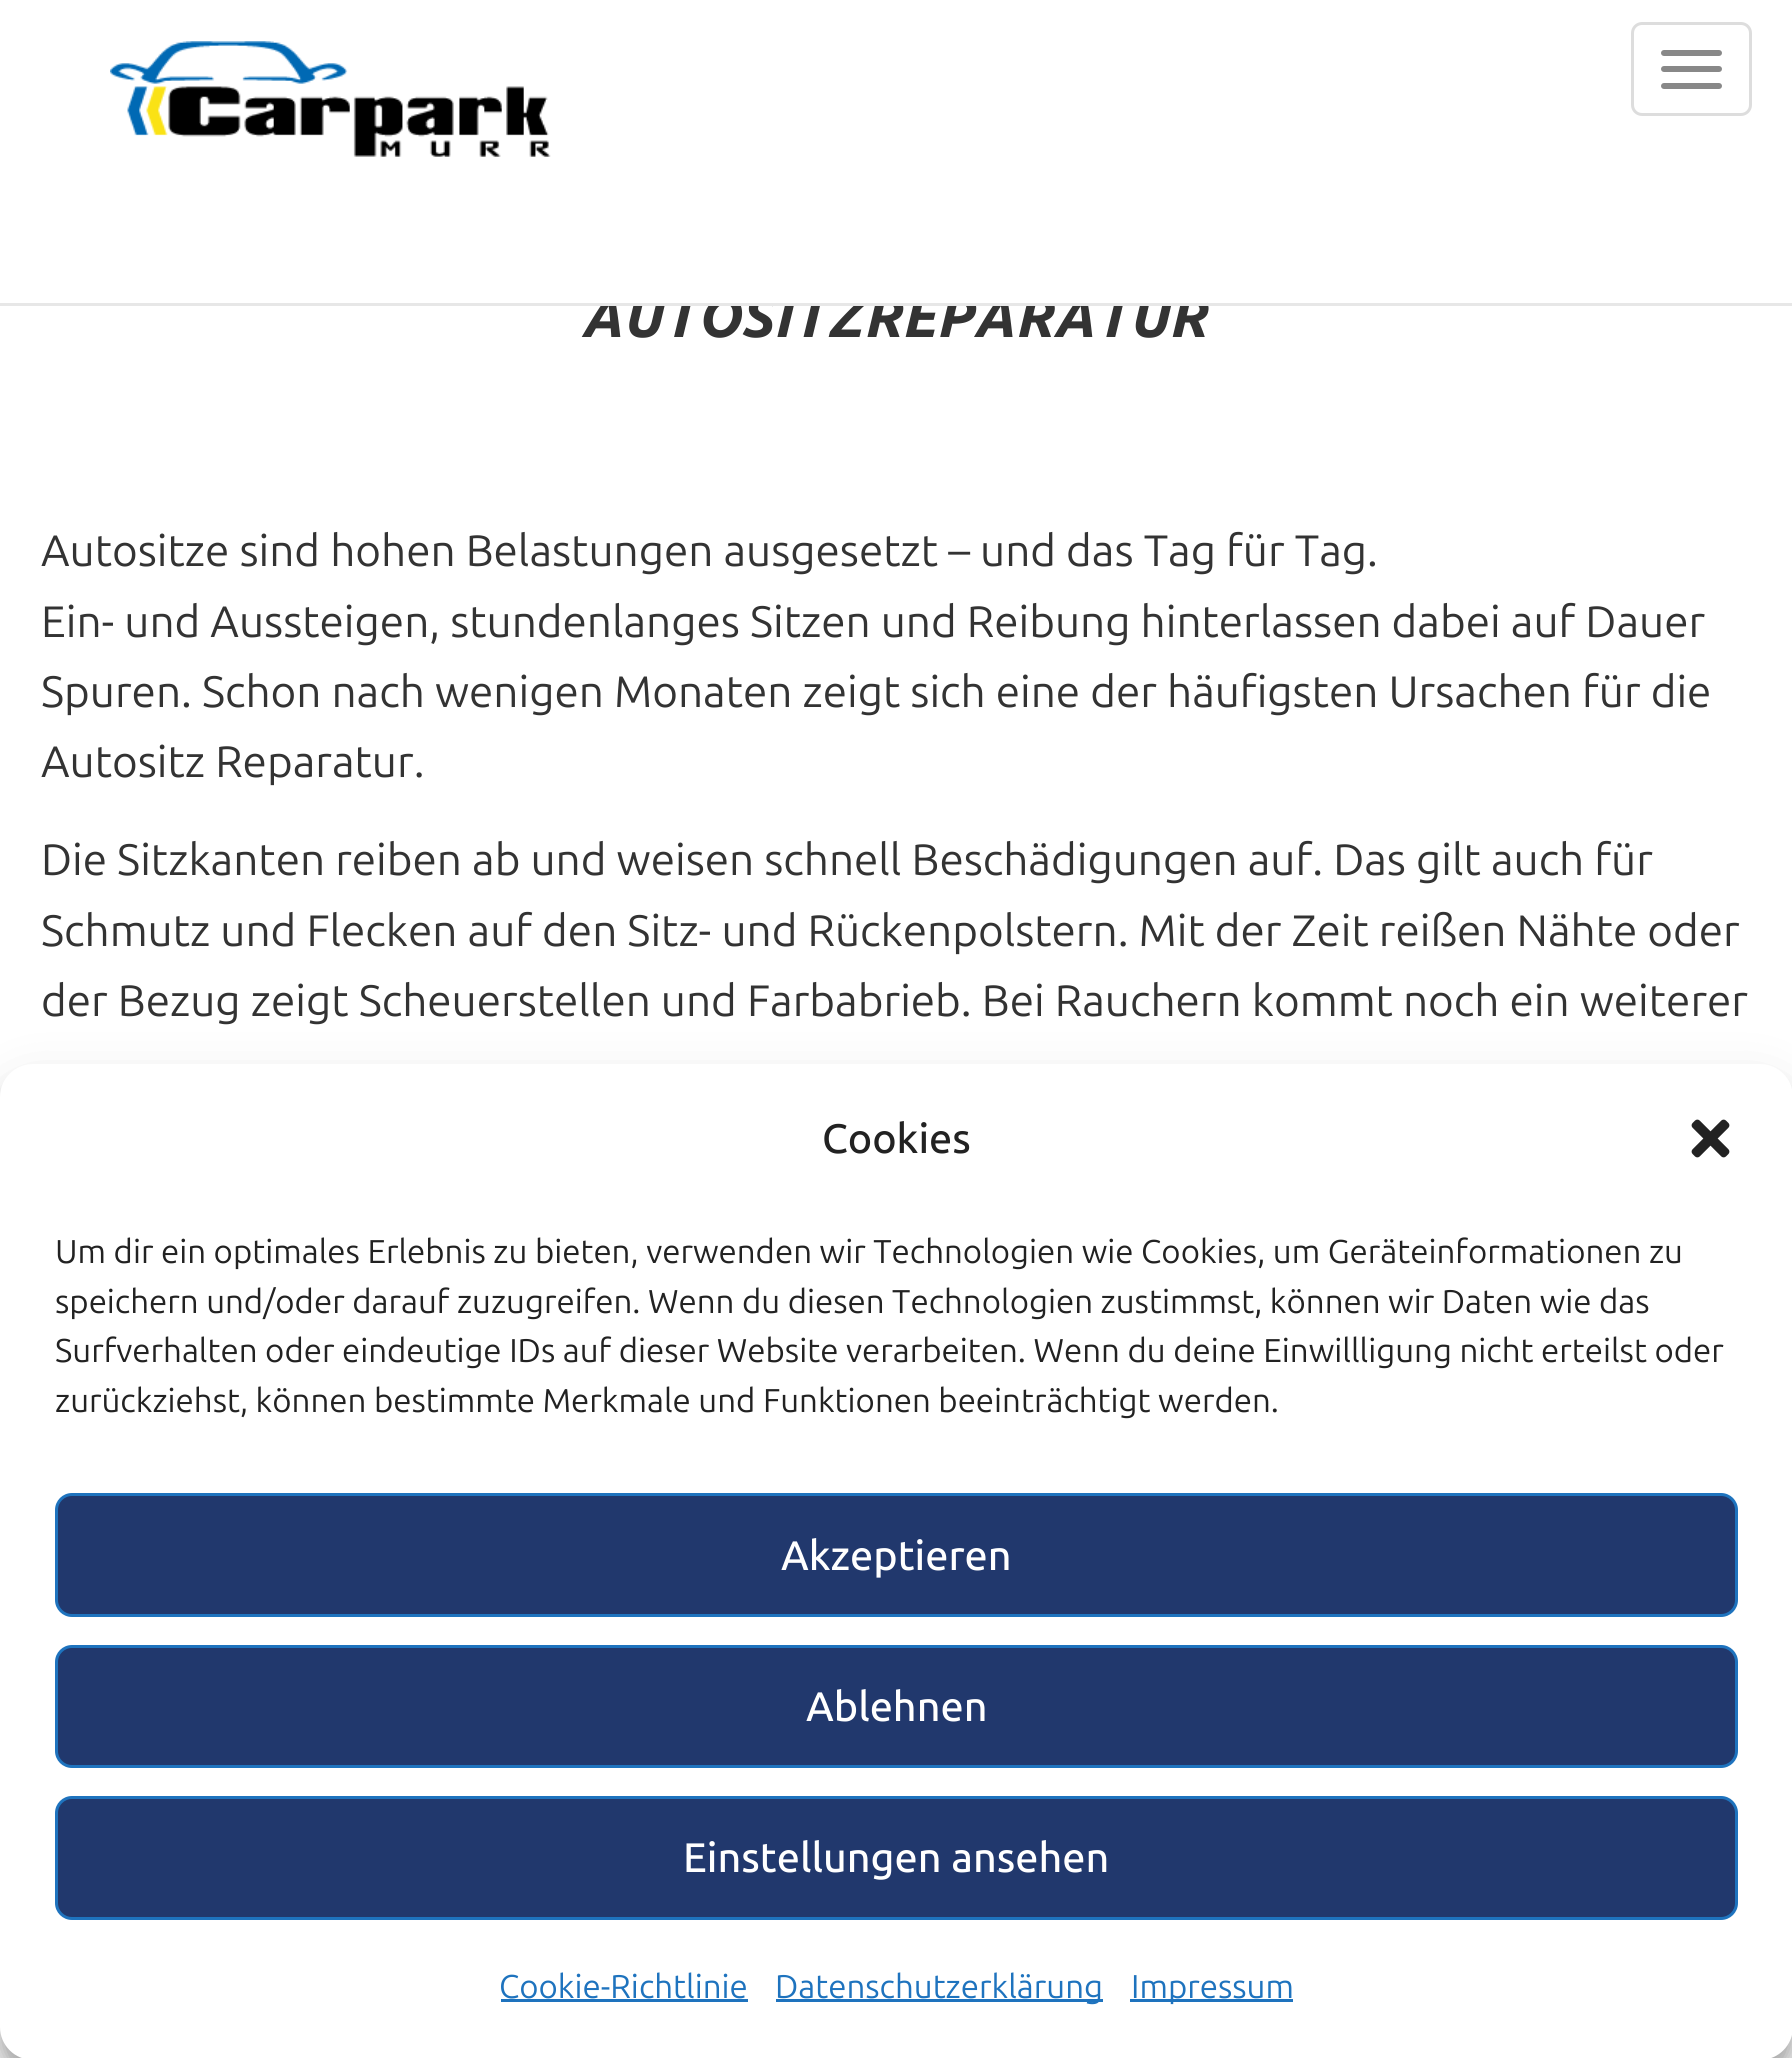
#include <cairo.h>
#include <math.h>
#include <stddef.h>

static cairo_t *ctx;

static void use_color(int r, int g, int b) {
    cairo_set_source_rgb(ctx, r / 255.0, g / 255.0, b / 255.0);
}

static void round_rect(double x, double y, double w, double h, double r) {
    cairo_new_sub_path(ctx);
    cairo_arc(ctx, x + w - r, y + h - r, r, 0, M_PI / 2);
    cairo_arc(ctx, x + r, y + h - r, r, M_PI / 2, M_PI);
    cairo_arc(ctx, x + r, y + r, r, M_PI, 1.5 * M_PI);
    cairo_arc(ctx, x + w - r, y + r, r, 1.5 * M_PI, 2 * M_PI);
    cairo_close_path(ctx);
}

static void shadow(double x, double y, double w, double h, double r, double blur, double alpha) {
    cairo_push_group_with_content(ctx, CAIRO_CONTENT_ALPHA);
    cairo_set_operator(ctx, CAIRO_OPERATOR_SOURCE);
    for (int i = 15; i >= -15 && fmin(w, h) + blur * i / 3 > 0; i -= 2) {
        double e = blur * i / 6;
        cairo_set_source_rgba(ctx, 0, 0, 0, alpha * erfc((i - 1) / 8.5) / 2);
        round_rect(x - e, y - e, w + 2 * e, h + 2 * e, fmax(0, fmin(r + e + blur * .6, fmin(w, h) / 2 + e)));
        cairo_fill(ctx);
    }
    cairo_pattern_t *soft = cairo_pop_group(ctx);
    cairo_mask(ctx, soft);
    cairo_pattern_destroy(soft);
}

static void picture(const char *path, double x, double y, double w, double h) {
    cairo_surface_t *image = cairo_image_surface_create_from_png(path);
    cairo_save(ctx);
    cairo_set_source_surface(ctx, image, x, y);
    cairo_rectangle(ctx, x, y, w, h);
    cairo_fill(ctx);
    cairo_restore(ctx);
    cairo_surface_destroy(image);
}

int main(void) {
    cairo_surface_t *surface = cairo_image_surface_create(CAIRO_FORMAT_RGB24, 1792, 2058);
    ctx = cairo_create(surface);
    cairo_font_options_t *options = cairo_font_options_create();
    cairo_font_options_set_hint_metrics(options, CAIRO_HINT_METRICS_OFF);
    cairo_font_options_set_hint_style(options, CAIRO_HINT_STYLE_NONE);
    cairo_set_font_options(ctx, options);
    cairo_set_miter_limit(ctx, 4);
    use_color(255, 255, 255);
    cairo_paint(ctx);
    cairo_select_font_face(ctx, "Ubuntu ExtraBold", CAIRO_FONT_SLANT_ITALIC, CAIRO_FONT_WEIGHT_NORMAL);
    cairo_set_font_size(ctx, 57.25);
    use_color(51, 51, 51);
    cairo_move_to(ctx, 584, 337);
    cairo_show_text(ctx, "AUTOSITZREPARATUR");
    use_color(231, 231, 231);
    cairo_rectangle(ctx, 0, 303, 1792, 3);
    cairo_fill(ctx);
    use_color(255, 255, 255);
    cairo_rectangle(ctx, 602, 296, 605, 7);
    cairo_fill(ctx);
    picture("img1.png", 110, 41, 441, 116);
    round_rect(1632.5, 23.5, 118, 91, 9.5);
    use_color(221, 221, 221);
    cairo_set_line_width(ctx, 3);
    cairo_stroke(ctx);
    use_color(136, 136, 136);
    round_rect(1661, 50, 61, 6, 3);
    cairo_fill(ctx);
    round_rect(1661, 66, 61, 6, 3);
    cairo_fill(ctx);
    round_rect(1661, 83, 61, 6, 3);
    cairo_fill(ctx);
    cairo_select_font_face(ctx, "Ubuntu", CAIRO_FONT_SLANT_NORMAL, CAIRO_FONT_WEIGHT_NORMAL);
    cairo_set_font_size(ctx, 44);
    use_color(51, 51, 51);
    cairo_move_to(ctx, 41, 566);
    cairo_show_text(ctx, "Autositze sind hohen Belastungen ausgesetzt – und das Tag für Tag.");
    cairo_move_to(ctx, 41, 637);
    cairo_show_text(ctx, "Ein- und Aussteigen, stundenlanges Sitzen und Reibung hinterlassen dabei auf Dauer");
    cairo_move_to(ctx, 41, 707);
    cairo_show_text(ctx, "Spuren. Schon nach wenigen Monaten zeigt sich eine der häufigsten Ursachen für die");
    cairo_move_to(ctx, 41, 777);
    cairo_show_text(ctx, "Autositz Reparatur.");
    cairo_move_to(ctx, 41, 875);
    cairo_show_text(ctx, "Die Sitzkanten reiben ab und weisen schnell Beschädigungen auf. Das gilt auch für");
    cairo_move_to(ctx, 41, 946);
    cairo_show_text(ctx, "Schmutz und Flecken auf den Sitz- und Rückenpolstern. Mit der Zeit reißen Nähte oder");
    cairo_move_to(ctx, 41, 1016);
    cairo_show_text(ctx, "der Bezug zeigt Scheuerstellen und Farbabrieb. Bei Rauchern kommt noch ein weiterer");
    use_color(0, 0, 0);
    shadow(0, 1081, 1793, 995, 33, 8, 0.23);
    shadow(0, 1092, 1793, 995, 33, 27.5, 0.19);
    use_color(255, 255, 255);
    round_rect(0, 1064, 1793, 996, 33);
    cairo_fill(ctx);
    cairo_select_font_face(ctx, "Ubuntu Medium", CAIRO_FONT_SLANT_NORMAL, CAIRO_FONT_WEIGHT_NORMAL);
    cairo_set_font_size(ctx, 41.25);
    use_color(34, 34, 34);
    cairo_move_to(ctx, 822, 1153);
    cairo_show_text(ctx, "Cookies");
    picture("img2.png", 1691, 1119, 39, 39);
    cairo_select_font_face(ctx, "Ubuntu", CAIRO_FONT_SLANT_NORMAL, CAIRO_FONT_WEIGHT_NORMAL);
    cairo_set_font_size(ctx, 33);
    cairo_move_to(ctx, 55, 1263);
    cairo_show_text(ctx, "Um dir ein optimales Erlebnis zu bieten, verwenden wir Technologien wie Cookies, um Geräteinformationen zu");
    cairo_move_to(ctx, 55, 1313);
    cairo_show_text(ctx, "speichern und/oder darauf zuzugreifen. Wenn du diesen Technologien zustimmst, können wir Daten wie das");
    cairo_move_to(ctx, 55, 1362);
    cairo_show_text(ctx, "Surfverhalten oder eindeutige IDs auf dieser Website verarbeiten. Wenn du deine Einwillligung nicht erteilst oder");
    cairo_move_to(ctx, 55, 1412);
    cairo_show_text(ctx, "zurückziehst, können bestimmte Merkmale und Funktionen beeinträchtigt werden.");
    use_color(33, 56, 109);
    round_rect(56.5, 1494.5, 1680, 121, 15.5);
    cairo_fill_preserve(ctx);
    use_color(30, 115, 190);
    cairo_stroke(ctx);
    cairo_select_font_face(ctx, "Ubuntu Medium", CAIRO_FONT_SLANT_NORMAL, CAIRO_FONT_WEIGHT_NORMAL);
    cairo_set_font_size(ctx, 41.25);
    use_color(255, 255, 255);
    cairo_move_to(ctx, 781, 1570);
    cairo_show_text(ctx, "Akzeptieren");
    use_color(33, 56, 109);
    round_rect(56.5, 1646.5, 1680, 120, 15.5);
    cairo_fill_preserve(ctx);
    use_color(30, 115, 190);
    cairo_stroke(ctx);
    use_color(255, 255, 255);
    cairo_move_to(ctx, 806, 1721);
    cairo_show_text(ctx, "Ablehnen");
    use_color(33, 56, 109);
    round_rect(56.5, 1797.5, 1680, 121, 15.5);
    cairo_fill_preserve(ctx);
    use_color(30, 115, 190);
    cairo_stroke(ctx);
    use_color(255, 255, 255);
    cairo_move_to(ctx, 683, 1872);
    cairo_show_text(ctx, "Einstellungen ansehen");
    cairo_select_font_face(ctx, "Ubuntu", CAIRO_FONT_SLANT_NORMAL, CAIRO_FONT_WEIGHT_NORMAL);
    cairo_set_font_size(ctx, 33);
    use_color(30, 115, 190);
    cairo_move_to(ctx, 499, 1998);
    cairo_show_text(ctx, "Cookie-Richtlinie");
    cairo_rectangle(ctx, 501, 1999, 247, 3);
    cairo_fill(ctx);
    cairo_rectangle(ctx, 776, 1999, 327, 3);
    cairo_fill(ctx);
    cairo_move_to(ctx, 775, 1998);
    cairo_show_text(ctx, "Datenschutzerklärung");
    cairo_rectangle(ctx, 1130, 1999, 163, 3);
    cairo_fill(ctx);
    cairo_move_to(ctx, 1131, 1998);
    cairo_show_text(ctx, "Impressum");
    cairo_surface_write_to_png(surface, "result.png");
    cairo_font_options_destroy(options);
    cairo_destroy(ctx);
    cairo_surface_destroy(surface);
    return 0;
}
